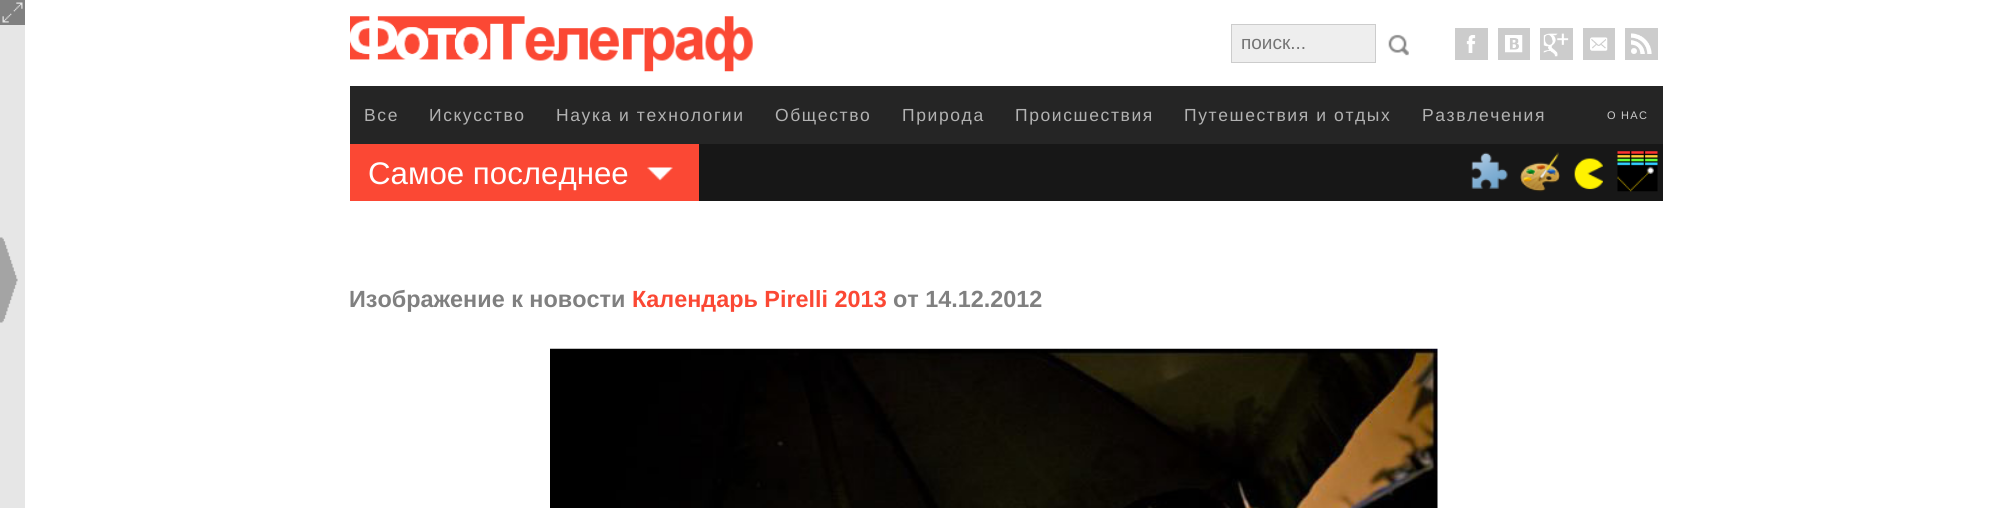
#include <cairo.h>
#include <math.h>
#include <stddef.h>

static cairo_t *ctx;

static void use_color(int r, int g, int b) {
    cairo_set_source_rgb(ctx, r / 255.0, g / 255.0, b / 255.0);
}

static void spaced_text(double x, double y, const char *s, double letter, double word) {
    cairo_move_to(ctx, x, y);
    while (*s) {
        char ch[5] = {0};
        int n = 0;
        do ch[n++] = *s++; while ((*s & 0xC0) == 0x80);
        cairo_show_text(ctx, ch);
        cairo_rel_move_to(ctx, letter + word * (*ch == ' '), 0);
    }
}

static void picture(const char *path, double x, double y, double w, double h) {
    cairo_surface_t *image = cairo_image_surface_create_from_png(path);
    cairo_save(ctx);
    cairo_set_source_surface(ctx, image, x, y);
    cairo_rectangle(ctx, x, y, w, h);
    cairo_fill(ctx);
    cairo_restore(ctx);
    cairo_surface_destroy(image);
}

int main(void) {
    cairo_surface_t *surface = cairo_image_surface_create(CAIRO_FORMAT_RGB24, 2011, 508);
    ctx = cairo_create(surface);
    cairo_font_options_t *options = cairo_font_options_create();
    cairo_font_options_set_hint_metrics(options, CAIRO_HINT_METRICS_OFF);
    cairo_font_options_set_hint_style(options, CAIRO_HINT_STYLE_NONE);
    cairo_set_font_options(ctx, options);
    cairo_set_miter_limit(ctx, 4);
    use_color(255, 255, 255);
    cairo_paint(ctx);
    use_color(128, 128, 128);
    cairo_rectangle(ctx, 0, 0, 25, 25);
    cairo_fill(ctx);
    picture("img1.png", 2, 2, 21, 21);
    use_color(230, 230, 230);
    cairo_rectangle(ctx, 0, 25, 25, 483);
    cairo_fill(ctx);
    picture("img2.png", 0, 237, 18, 86);
    picture("img3.png", 350, 16, 403, 56);
    use_color(238, 238, 238);
    cairo_rectangle(ctx, 1231.5, 24.5, 144, 38);
    cairo_fill_preserve(ctx);
    use_color(204, 204, 204);
    cairo_set_line_width(ctx, 1);
    cairo_stroke(ctx);
    cairo_select_font_face(ctx, "Liberation Sans", CAIRO_FONT_SLANT_NORMAL, CAIRO_FONT_WEIGHT_NORMAL);
    cairo_set_font_size(ctx, 19);
    use_color(117, 117, 117);
    cairo_move_to(ctx, 1241, 49);
    cairo_show_text(ctx, "поиск...");
    picture("img4.png", 1388, 34, 21, 22);
    use_color(204, 204, 204);
    cairo_rectangle(ctx, 1455, 28, 33, 32);
    cairo_fill(ctx);
    picture("img5.png", 1466, 35, 10, 18);
    cairo_rectangle(ctx, 1498, 28, 32, 32);
    cairo_fill(ctx);
    picture("img6.png", 1505, 35, 18, 18);
    cairo_rectangle(ctx, 1540, 28, 33, 32);
    cairo_fill(ctx);
    picture("img7.png", 1543, 33, 26, 24);
    cairo_rectangle(ctx, 1583, 28, 32, 32);
    cairo_fill(ctx);
    picture("img8.png", 1590, 37, 18, 14);
    cairo_rectangle(ctx, 1625, 28, 33, 32);
    cairo_fill(ctx);
    picture("img9.png", 1631, 33, 21, 21);
    use_color(37, 37, 37);
    cairo_rectangle(ctx, 350, 86, 1313, 58);
    cairo_fill(ctx);
    cairo_set_font_size(ctx, 17.5);
    use_color(178, 178, 178);
    spaced_text(364, 121, "Все", 1.6, 0);
    spaced_text(429, 121, "Искусство", 1.6, 0);
    spaced_text(556, 121, "Наука и технологии", 1.6, 0);
    spaced_text(775, 121, "Общество", 1.6, 0);
    spaced_text(902, 121, "Природа", 1.6, 0);
    spaced_text(1015, 121, "Происшествия", 1.6, 0);
    spaced_text(1184, 121, "Путешествия и отдых", 1.6, 0);
    spaced_text(1422, 121, "Развлечения", 1.6, 0);
    cairo_set_font_size(ctx, 11);
    use_color(204, 204, 204);
    spaced_text(1607, 119, "О НАС", 1.25, 0);
    use_color(23, 23, 23);
    cairo_rectangle(ctx, 699, 144, 964, 57);
    cairo_fill(ctx);
    use_color(251, 72, 52);
    cairo_rectangle(ctx, 350, 144, 349, 57);
    cairo_fill(ctx);
    picture("img10.png", 647, 167, 26, 14);
    cairo_set_font_size(ctx, 31.25);
    use_color(255, 255, 255);
    cairo_move_to(ctx, 368, 184);
    cairo_show_text(ctx, "Самое последнее");
    picture("img11.png", 1471, 152, 37, 37);
    picture("img12.png", 1520, 152, 40, 40);
    picture("img13.png", 1574, 158, 29, 32);
    picture("img14.png", 1617, 151, 41, 41);
    cairo_select_font_face(ctx, "Liberation Sans", CAIRO_FONT_SLANT_NORMAL, CAIRO_FONT_WEIGHT_BOLD);
    cairo_set_font_size(ctx, 23.4);
    use_color(128, 128, 128);
    cairo_move_to(ctx, 349, 307);
    cairo_show_text(ctx, "Изображение к новости");
    use_color(251, 72, 52);
    cairo_move_to(ctx, 632, 307);
    cairo_show_text(ctx, "Календарь Pirelli 2013");
    use_color(128, 128, 128);
    cairo_move_to(ctx, 893, 307);
    cairo_show_text(ctx, "от 14.12.2012");
    picture("img15.png", 550, 348, 888, 160);
    cairo_surface_write_to_png(surface, "result.png");
    cairo_font_options_destroy(options);
    cairo_destroy(ctx);
    cairo_surface_destroy(surface);
    return 0;
}
